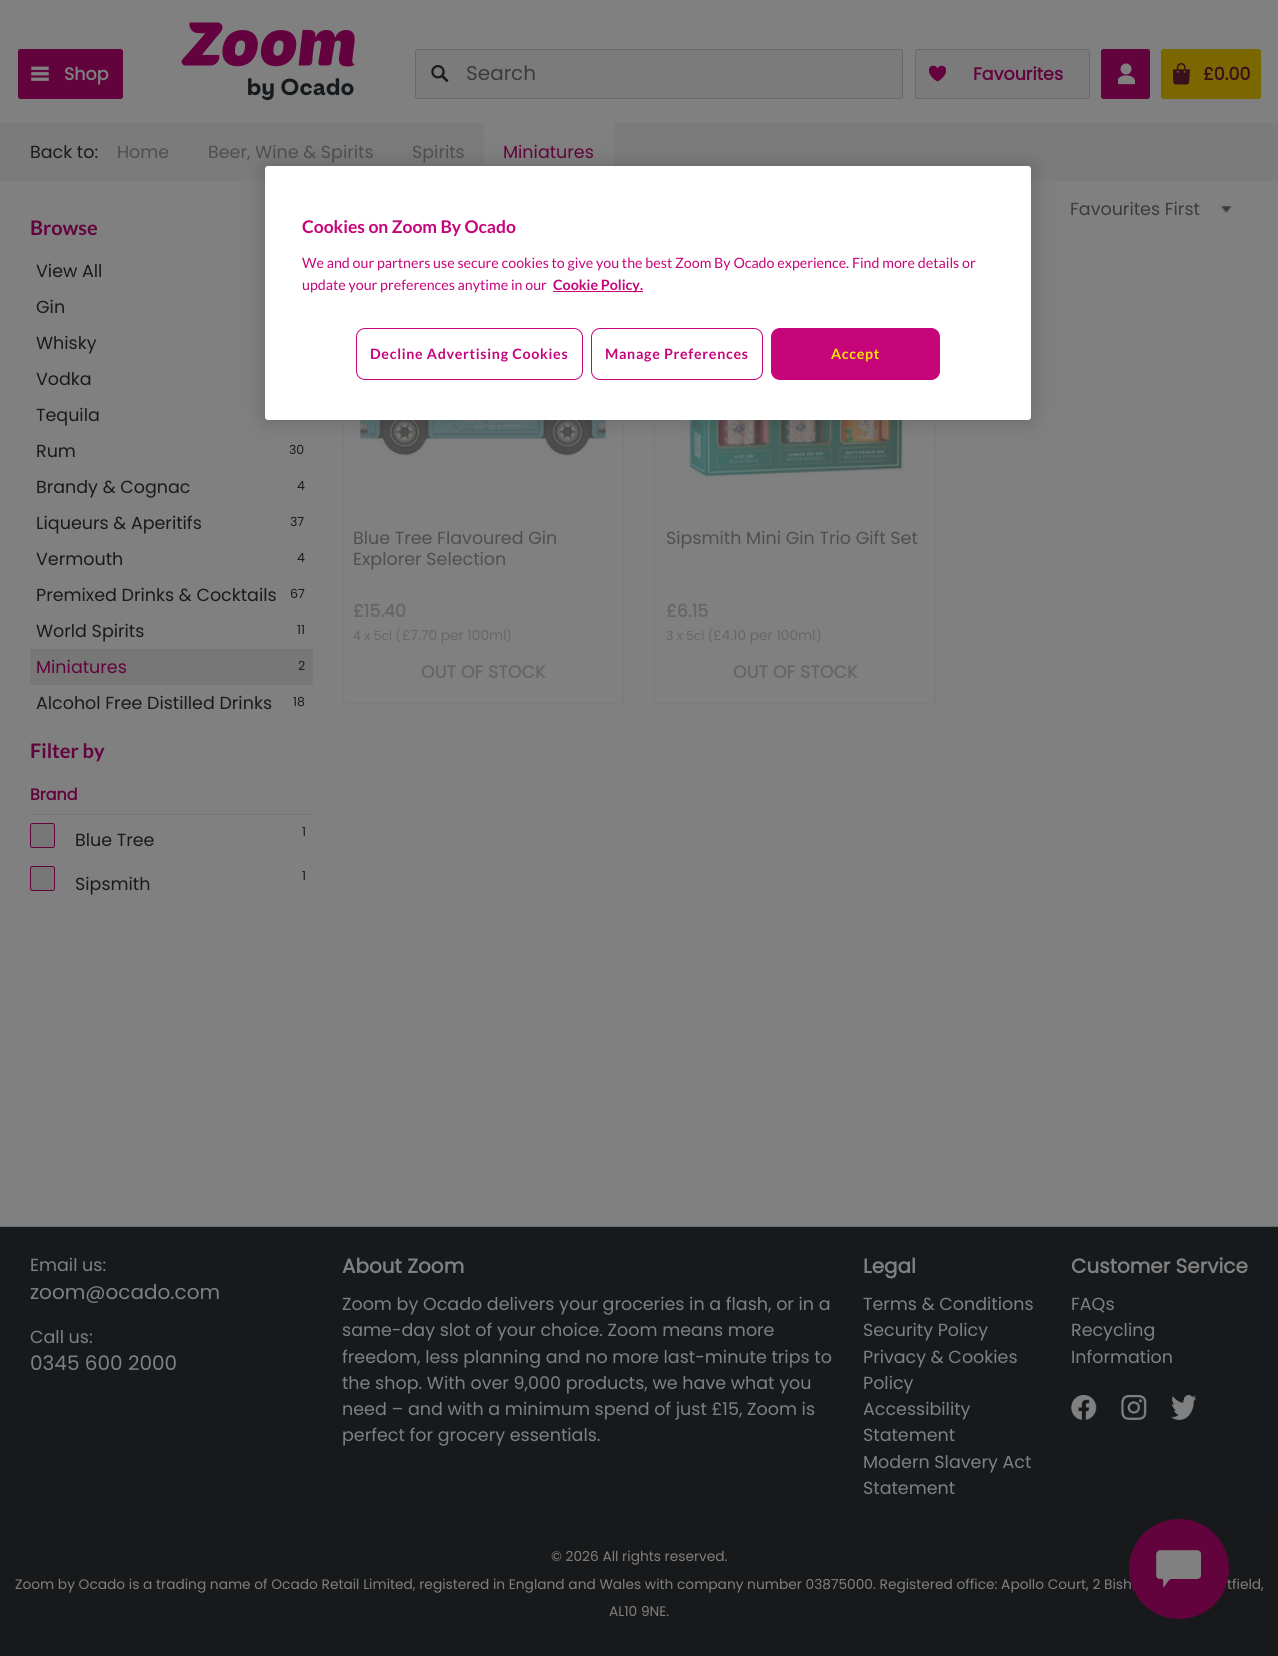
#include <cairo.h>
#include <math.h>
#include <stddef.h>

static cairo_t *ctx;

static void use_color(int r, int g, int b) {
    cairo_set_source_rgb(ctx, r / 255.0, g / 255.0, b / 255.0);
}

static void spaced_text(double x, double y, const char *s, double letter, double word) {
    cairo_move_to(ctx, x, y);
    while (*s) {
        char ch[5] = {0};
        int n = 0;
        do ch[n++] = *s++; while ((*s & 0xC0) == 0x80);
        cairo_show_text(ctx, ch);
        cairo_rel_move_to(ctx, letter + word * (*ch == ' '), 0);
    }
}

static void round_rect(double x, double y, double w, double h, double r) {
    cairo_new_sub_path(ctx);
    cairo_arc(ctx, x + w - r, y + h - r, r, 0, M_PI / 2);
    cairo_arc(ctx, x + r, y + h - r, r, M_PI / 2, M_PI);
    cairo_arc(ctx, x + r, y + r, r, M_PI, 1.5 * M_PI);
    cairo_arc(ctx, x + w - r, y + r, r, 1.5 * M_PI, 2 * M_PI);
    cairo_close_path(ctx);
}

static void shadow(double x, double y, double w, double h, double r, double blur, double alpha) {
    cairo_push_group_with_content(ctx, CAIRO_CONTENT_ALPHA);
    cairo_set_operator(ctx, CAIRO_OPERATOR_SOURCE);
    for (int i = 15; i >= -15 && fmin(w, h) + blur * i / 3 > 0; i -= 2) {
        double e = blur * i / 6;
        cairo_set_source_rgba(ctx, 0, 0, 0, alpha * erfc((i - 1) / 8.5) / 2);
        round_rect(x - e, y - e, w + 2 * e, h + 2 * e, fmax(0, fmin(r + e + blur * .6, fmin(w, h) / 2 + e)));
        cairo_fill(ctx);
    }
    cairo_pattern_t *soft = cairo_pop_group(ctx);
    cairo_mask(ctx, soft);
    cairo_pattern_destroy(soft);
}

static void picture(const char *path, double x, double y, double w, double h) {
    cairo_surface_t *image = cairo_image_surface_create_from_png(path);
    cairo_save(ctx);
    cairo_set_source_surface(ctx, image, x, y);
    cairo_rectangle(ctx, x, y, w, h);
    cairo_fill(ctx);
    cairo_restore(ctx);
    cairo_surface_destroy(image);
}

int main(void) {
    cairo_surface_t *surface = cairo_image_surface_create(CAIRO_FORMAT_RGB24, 1278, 1656);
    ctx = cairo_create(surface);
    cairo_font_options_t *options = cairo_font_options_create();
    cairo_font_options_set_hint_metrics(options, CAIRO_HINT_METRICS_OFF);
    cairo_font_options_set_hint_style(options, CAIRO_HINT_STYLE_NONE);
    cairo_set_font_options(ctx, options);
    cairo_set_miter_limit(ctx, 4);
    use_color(128, 128, 128);
    cairo_paint(ctx);
    use_color(99, 3, 62);
    round_rect(18, 49, 105, 50, 2.5);
    cairo_fill(ctx);
    picture("img1.png", 31, 66, 18, 15);
    cairo_select_font_face(ctx, "Poppins", CAIRO_FONT_SLANT_NORMAL, CAIRO_FONT_WEIGHT_BOLD);
    cairo_set_font_size(ctx, 17.5);
    use_color(128, 128, 128);
    cairo_move_to(ctx, 64, 80);
    cairo_show_text(ctx, "Shop");
    picture("img2.png", 181, 22, 174, 79);
    use_color(123, 123, 123);
    round_rect(415.5, 49.5, 487, 49, 2);
    cairo_fill_preserve(ctx);
    use_color(104, 104, 104);
    cairo_set_line_width(ctx, 1);
    cairo_stroke(ctx);
    picture("img3.png", 431, 65, 18, 18);
    cairo_select_font_face(ctx, "Poppins", CAIRO_FONT_SLANT_NORMAL, CAIRO_FONT_WEIGHT_NORMAL);
    cairo_set_font_size(ctx, 20);
    use_color(59, 59, 59);
    cairo_move_to(ctx, 466, 80);
    cairo_show_text(ctx, "Search");
    use_color(123, 123, 123);
    round_rect(915.5, 49.5, 174, 49, 2);
    cairo_fill_preserve(ctx);
    use_color(107, 106, 106);
    cairo_stroke(ctx);
    picture("img4.png", 929, 65, 17, 17);
    cairo_select_font_face(ctx, "Poppins", CAIRO_FONT_SLANT_NORMAL, CAIRO_FONT_WEIGHT_BOLD);
    cairo_set_font_size(ctx, 17.5);
    use_color(99, 3, 62);
    cairo_move_to(ctx, 973, 80);
    cairo_show_text(ctx, "Favourites");
    round_rect(1101, 49, 49, 50, 2.5);
    cairo_fill(ctx);
    picture("img5.png", 1118, 63, 17, 22);
    use_color(123, 103, 0);
    round_rect(1161, 49, 100, 50, 2.5);
    cairo_fill(ctx);
    picture("img6.png", 1173, 63, 17, 22);
    use_color(56, 16, 30);
    cairo_move_to(ctx, 1203, 80);
    cairo_show_text(ctx, "£0.00");
    use_color(123, 123, 123);
    cairo_rectangle(ctx, 0, 123, 1278, 58);
    cairo_fill(ctx);
    cairo_select_font_face(ctx, "Poppins", CAIRO_FONT_SLANT_NORMAL, CAIRO_FONT_WEIGHT_NORMAL);
    use_color(26, 26, 26);
    cairo_move_to(ctx, 30, 158);
    cairo_show_text(ctx, "Back to:");
    use_color(79, 79, 79);
    cairo_move_to(ctx, 117, 158);
    cairo_show_text(ctx, "Home");
    cairo_move_to(ctx, 208, 158);
    cairo_show_text(ctx, "Beer, Wine & Spirits");
    cairo_move_to(ctx, 412, 158);
    cairo_show_text(ctx, "Spirits");
    use_color(128, 128, 128);
    cairo_rectangle(ctx, 484, 123, 130, 43);
    cairo_fill(ctx);
    use_color(99, 3, 62);
    cairo_move_to(ctx, 503, 158);
    cairo_show_text(ctx, "Miniatures");
    cairo_select_font_face(ctx, "Lato", CAIRO_FONT_SLANT_NORMAL, CAIRO_FONT_WEIGHT_BOLD);
    cairo_set_font_size(ctx, 20);
    cairo_move_to(ctx, 30, 235);
    cairo_show_text(ctx, "Browse");
    cairo_select_font_face(ctx, "Poppins", CAIRO_FONT_SLANT_NORMAL, CAIRO_FONT_WEIGHT_NORMAL);
    cairo_set_font_size(ctx, 17.5);
    use_color(26, 26, 26);
    cairo_move_to(ctx, 36, 277);
    cairo_show_text(ctx, "View All");
    cairo_move_to(ctx, 36, 313);
    cairo_show_text(ctx, "Gin");
    cairo_move_to(ctx, 36, 349);
    cairo_show_text(ctx, "Whisky");
    cairo_move_to(ctx, 36, 385);
    cairo_show_text(ctx, "Vodka");
    cairo_move_to(ctx, 36, 421);
    cairo_show_text(ctx, "Tequila");
    cairo_move_to(ctx, 36, 457);
    cairo_show_text(ctx, "Rum");
    cairo_set_font_size(ctx, 12.5);
    cairo_move_to(ctx, 289, 454);
    cairo_show_text(ctx, "30");
    cairo_set_font_size(ctx, 17.5);
    cairo_move_to(ctx, 36, 493);
    cairo_show_text(ctx, "Brandy & Cognac");
    cairo_set_font_size(ctx, 12.5);
    cairo_move_to(ctx, 297, 490);
    cairo_show_text(ctx, "4");
    cairo_set_font_size(ctx, 17.5);
    cairo_move_to(ctx, 36, 529);
    cairo_show_text(ctx, "Liqueurs & Aperitifs");
    cairo_set_font_size(ctx, 12.5);
    cairo_move_to(ctx, 290, 526);
    cairo_show_text(ctx, "37");
    cairo_set_font_size(ctx, 17.5);
    cairo_move_to(ctx, 36, 565);
    cairo_show_text(ctx, "Vermouth");
    cairo_set_font_size(ctx, 12.5);
    cairo_move_to(ctx, 297, 562);
    cairo_show_text(ctx, "4");
    cairo_set_font_size(ctx, 17.5);
    cairo_move_to(ctx, 36, 601);
    cairo_show_text(ctx, "Premixed Drinks & Cocktails");
    cairo_set_font_size(ctx, 12.5);
    cairo_move_to(ctx, 290, 598);
    cairo_show_text(ctx, "67");
    cairo_set_font_size(ctx, 17.5);
    cairo_move_to(ctx, 36, 637);
    cairo_show_text(ctx, "World Spirits");
    cairo_set_font_size(ctx, 12.5);
    cairo_move_to(ctx, 297, 634);
    cairo_show_text(ctx, "11");
    use_color(119, 119, 119);
    cairo_rectangle(ctx, 30, 649, 283, 36);
    cairo_fill(ctx);
    cairo_set_font_size(ctx, 17.5);
    use_color(99, 3, 62);
    cairo_move_to(ctx, 36, 673);
    cairo_show_text(ctx, "Miniatures");
    cairo_set_font_size(ctx, 12.5);
    use_color(26, 26, 26);
    cairo_move_to(ctx, 298, 670);
    cairo_show_text(ctx, "2");
    cairo_set_font_size(ctx, 17.5);
    cairo_move_to(ctx, 36, 709);
    cairo_show_text(ctx, "Alcohol Free Distilled Drinks");
    cairo_set_font_size(ctx, 12.5);
    cairo_move_to(ctx, 293, 706);
    cairo_show_text(ctx, "18");
    cairo_select_font_face(ctx, "Lato", CAIRO_FONT_SLANT_NORMAL, CAIRO_FONT_WEIGHT_BOLD);
    cairo_set_font_size(ctx, 20);
    use_color(99, 3, 62);
    cairo_move_to(ctx, 30, 758);
    cairo_show_text(ctx, "Filter by");
    cairo_select_font_face(ctx, "Poppins", CAIRO_FONT_SLANT_NORMAL, CAIRO_FONT_WEIGHT_BOLD);
    cairo_set_font_size(ctx, 16);
    cairo_move_to(ctx, 30, 800);
    cairo_show_text(ctx, "Brand");
    use_color(119, 119, 119);
    cairo_rectangle(ctx, 30, 814, 283, 1);
    cairo_fill(ctx);
    cairo_select_font_face(ctx, "Poppins", CAIRO_FONT_SLANT_NORMAL, CAIRO_FONT_WEIGHT_NORMAL);
    cairo_set_font_size(ctx, 12.5);
    use_color(26, 26, 26);
    cairo_move_to(ctx, 302, 836);
    cairo_show_text(ctx, "1");
    use_color(119, 119, 119);
    round_rect(30.5, 823.5, 24, 24, 2);
    cairo_fill_preserve(ctx);
    use_color(99, 3, 62);
    cairo_stroke(ctx);
    cairo_set_font_size(ctx, 17.5);
    use_color(26, 26, 26);
    cairo_move_to(ctx, 75, 846);
    cairo_show_text(ctx, "Blue Tree");
    cairo_set_font_size(ctx, 12.5);
    cairo_move_to(ctx, 302, 880);
    cairo_show_text(ctx, "1");
    use_color(119, 119, 119);
    round_rect(30.5, 866.5, 24, 24, 2);
    cairo_fill_preserve(ctx);
    use_color(99, 3, 62);
    cairo_stroke(ctx);
    cairo_set_font_size(ctx, 17.5);
    use_color(26, 26, 26);
    cairo_move_to(ctx, 75, 890);
    cairo_show_text(ctx, "Sipsmith");
    picture("img7.png", 1221, 206, 11, 7);
    use_color(59, 59, 59);
    cairo_move_to(ctx, 1070, 215);
    cairo_show_text(ctx, "Favourites First");
    round_rect(343.5, 238.5, 280, 465, 2);
    use_color(123, 123, 123);
    cairo_stroke(ctx);
    picture("img8.png", 354, 420, 258, 37);
    use_color(79, 79, 79);
    cairo_move_to(ctx, 353, 544);
    cairo_show_text(ctx, "Blue Tree Flavoured Gin");
    cairo_move_to(ctx, 353, 565);
    cairo_show_text(ctx, "Explorer Selection");
    cairo_select_font_face(ctx, "Poppins", CAIRO_FONT_SLANT_NORMAL, CAIRO_FONT_WEIGHT_BOLD);
    use_color(102, 102, 102);
    cairo_move_to(ctx, 353, 617);
    cairo_show_text(ctx, "£15.40");
    cairo_select_font_face(ctx, "Poppins", CAIRO_FONT_SLANT_NORMAL, CAIRO_FONT_WEIGHT_NORMAL);
    cairo_set_font_size(ctx, 12.5);
    cairo_move_to(ctx, 353, 640);
    cairo_show_text(ctx, "4 x 5cl (");
    cairo_set_font_size(ctx, 13.75);
    cairo_move_to(ctx, 402, 640);
    cairo_show_text(ctx, "£7.70 per 100ml");
    cairo_set_font_size(ctx, 12.5);
    cairo_move_to(ctx, 506, 640);
    cairo_show_text(ctx, ")");
    cairo_select_font_face(ctx, "Poppins", CAIRO_FONT_SLANT_NORMAL, CAIRO_FONT_WEIGHT_BOLD);
    cairo_set_font_size(ctx, 17.5);
    cairo_move_to(ctx, 421, 678);
    cairo_show_text(ctx, "OUT OF STOCK");
    round_rect(654.5, 238.5, 281, 465, 2);
    use_color(123, 123, 123);
    cairo_stroke(ctx);
    picture("img9.png", 682, 420, 228, 57);
    cairo_select_font_face(ctx, "Poppins", CAIRO_FONT_SLANT_NORMAL, CAIRO_FONT_WEIGHT_NORMAL);
    use_color(79, 79, 79);
    cairo_move_to(ctx, 666, 544);
    cairo_show_text(ctx, "Sipsmith Mini Gin Trio Gift Set");
    cairo_select_font_face(ctx, "Poppins", CAIRO_FONT_SLANT_NORMAL, CAIRO_FONT_WEIGHT_BOLD);
    use_color(102, 102, 102);
    cairo_move_to(ctx, 666, 617);
    cairo_show_text(ctx, "£6.15");
    cairo_select_font_face(ctx, "Poppins", CAIRO_FONT_SLANT_NORMAL, CAIRO_FONT_WEIGHT_NORMAL);
    cairo_set_font_size(ctx, 12.5);
    cairo_move_to(ctx, 666, 640);
    cairo_show_text(ctx, "3 x 5cl (");
    cairo_set_font_size(ctx, 13.75);
    cairo_move_to(ctx, 713, 640);
    cairo_show_text(ctx, "£4.10 per 100ml");
    cairo_set_font_size(ctx, 12.5);
    cairo_move_to(ctx, 816, 640);
    cairo_show_text(ctx, ")");
    cairo_select_font_face(ctx, "Poppins", CAIRO_FONT_SLANT_NORMAL, CAIRO_FONT_WEIGHT_BOLD);
    cairo_set_font_size(ctx, 17.5);
    cairo_move_to(ctx, 733, 678);
    cairo_show_text(ctx, "OUT OF STOCK");
    use_color(24, 25, 26);
    cairo_rectangle(ctx, 0, 1511, 1278, 145);
    cairo_fill(ctx);
    cairo_select_font_face(ctx, "Poppins", CAIRO_FONT_SLANT_NORMAL, CAIRO_FONT_WEIGHT_NORMAL);
    cairo_set_font_size(ctx, 13.75);
    use_color(128, 128, 128);
    cairo_move_to(ctx, 15, 1589);
    cairo_show_text(ctx, "Zoom by Ocado is a trading name of Ocado Retail Limited, registered in England and Wales with company number 03875000. Registered office: Apollo Court, 2 Bish");
    cairo_move_to(ctx, 1227, 1589);
    cairo_show_text(ctx, "tfield,");
    use_color(99, 3, 62);
    cairo_new_path(ctx);
    cairo_arc(ctx, 1179, 1569, 50, 0, 2 * M_PI);
    cairo_fill(ctx);
    picture("img10.png", 1156, 1550, 45, 37);
    use_color(23, 26, 29);
    cairo_rectangle(ctx, 0, 1227, 1278, 284);
    cairo_fill(ctx);
    use_color(106, 106, 106);
    cairo_rectangle(ctx, 0, 1226, 1278, 1);
    cairo_fill(ctx);
    cairo_set_font_size(ctx, 17.5);
    use_color(128, 128, 128);
    cairo_move_to(ctx, 30, 1271);
    cairo_show_text(ctx, "Email us:");
    cairo_set_font_size(ctx, 20);
    cairo_move_to(ctx, 30, 1299);
    cairo_show_text(ctx, "zoom@ocado.com");
    cairo_set_font_size(ctx, 17.5);
    cairo_move_to(ctx, 30, 1343);
    cairo_show_text(ctx, "Call us:");
    cairo_set_font_size(ctx, 20);
    cairo_move_to(ctx, 30, 1370);
    cairo_show_text(ctx, "0345 600 2000");
    cairo_select_font_face(ctx, "Poppins", CAIRO_FONT_SLANT_NORMAL, CAIRO_FONT_WEIGHT_BOLD);
    cairo_move_to(ctx, 342, 1273);
    cairo_show_text(ctx, "About Zoom");
    cairo_select_font_face(ctx, "Poppins", CAIRO_FONT_SLANT_NORMAL, CAIRO_FONT_WEIGHT_NORMAL);
    cairo_set_font_size(ctx, 17.5);
    cairo_move_to(ctx, 342, 1310);
    cairo_show_text(ctx, "Zoom by Ocado delivers your groceries in a flash, or in a");
    cairo_move_to(ctx, 342, 1336);
    cairo_show_text(ctx, "same-day slot of your choice. Zoom means more");
    cairo_move_to(ctx, 342, 1363);
    cairo_show_text(ctx, "freedom, less planning and no more last-minute trips to");
    cairo_move_to(ctx, 342, 1389);
    cairo_show_text(ctx, "the shop. With over 9,000 products, we have what you");
    cairo_move_to(ctx, 342, 1415);
    cairo_show_text(ctx, "need – and with a minimum spend of just £15, Zoom is");
    cairo_move_to(ctx, 342, 1441);
    cairo_show_text(ctx, "perfect for grocery essentials.");
    cairo_select_font_face(ctx, "Poppins", CAIRO_FONT_SLANT_NORMAL, CAIRO_FONT_WEIGHT_BOLD);
    cairo_set_font_size(ctx, 20);
    cairo_move_to(ctx, 863, 1273);
    cairo_show_text(ctx, "Legal");
    cairo_select_font_face(ctx, "Poppins", CAIRO_FONT_SLANT_NORMAL, CAIRO_FONT_WEIGHT_NORMAL);
    cairo_set_font_size(ctx, 17.5);
    cairo_move_to(ctx, 863, 1310);
    cairo_show_text(ctx, "Terms & Conditions");
    cairo_move_to(ctx, 863, 1336);
    cairo_show_text(ctx, "Security Policy");
    cairo_move_to(ctx, 863, 1363);
    cairo_show_text(ctx, "Privacy & Cookies");
    cairo_move_to(ctx, 863, 1389);
    cairo_show_text(ctx, "Policy");
    cairo_move_to(ctx, 863, 1415);
    cairo_show_text(ctx, "Accessibility");
    cairo_move_to(ctx, 863, 1441);
    cairo_show_text(ctx, "Statement");
    cairo_move_to(ctx, 863, 1468);
    cairo_show_text(ctx, "Modern Slavery Act");
    cairo_move_to(ctx, 863, 1494);
    cairo_show_text(ctx, "Statement");
    cairo_select_font_face(ctx, "Poppins", CAIRO_FONT_SLANT_NORMAL, CAIRO_FONT_WEIGHT_BOLD);
    cairo_set_font_size(ctx, 20);
    cairo_move_to(ctx, 1071, 1273);
    cairo_show_text(ctx, "Customer Service");
    cairo_select_font_face(ctx, "Poppins", CAIRO_FONT_SLANT_NORMAL, CAIRO_FONT_WEIGHT_NORMAL);
    cairo_set_font_size(ctx, 17.5);
    cairo_move_to(ctx, 1071, 1310);
    cairo_show_text(ctx, "FAQs");
    cairo_move_to(ctx, 1071, 1336);
    cairo_show_text(ctx, "Recycling");
    cairo_move_to(ctx, 1071, 1363);
    cairo_show_text(ctx, "Information");
    picture("img11.png", 1071, 1395, 26, 25);
    picture("img12.png", 1121, 1395, 26, 25);
    picture("img13.png", 1171, 1395, 26, 25);
    cairo_set_font_size(ctx, 13.75);
    cairo_move_to(ctx, 551, 1561);
    cairo_show_text(ctx, "© 2026 All rights reserved.");
    cairo_move_to(ctx, 609, 1616);
    cairo_show_text(ctx, "AL10 9NE.");
    use_color(0, 0, 0);
    shadow(265, 166, 766, 254, 3, 11, 0.2);
    use_color(255, 255, 255);
    round_rect(265, 166, 766, 254, 3);
    cairo_fill(ctx);
    cairo_select_font_face(ctx, "Lato", CAIRO_FONT_SLANT_NORMAL, CAIRO_FONT_WEIGHT_BOLD);
    cairo_set_font_size(ctx, 17.5);
    use_color(198, 5, 123);
    cairo_move_to(ctx, 302, 233);
    cairo_show_text(ctx, "Cookies on Zoom By Ocado");
    cairo_select_font_face(ctx, "Lato", CAIRO_FONT_SLANT_NORMAL, CAIRO_FONT_WEIGHT_NORMAL);
    cairo_set_font_size(ctx, 14.25);
    cairo_move_to(ctx, 302, 268);
    cairo_show_text(ctx, "We and our partners use secure cookies to give you the best Zoom By Ocado experience. Find more details or");
    cairo_move_to(ctx, 302, 290);
    cairo_show_text(ctx, "update your preferences anytime in our");
    cairo_rectangle(ctx, 553, 291, 90, 1);
    cairo_fill(ctx);
    cairo_select_font_face(ctx, "Lato", CAIRO_FONT_SLANT_NORMAL, CAIRO_FONT_WEIGHT_BOLD);
    cairo_move_to(ctx, 553, 290);
    cairo_show_text(ctx, "Cookie Policy.");
    round_rect(356.5, 328.5, 226, 51, 8.5);
    cairo_stroke(ctx);
    spaced_text(370, 359, "Decline Advertising Cookies", 0.7, 0);
    round_rect(591.5, 328.5, 171, 51, 8.5);
    cairo_stroke(ctx);
    spaced_text(605, 359, "Manage Preferences", 0.7, 0);
    round_rect(771.5, 328.5, 168, 51, 8.5);
    cairo_fill_preserve(ctx);
    cairo_stroke(ctx);
    use_color(248, 230, 0);
    spaced_text(831, 359, "Accept", 0.7, 0);
    cairo_surface_write_to_png(surface, "result.png");
    cairo_font_options_destroy(options);
    cairo_destroy(ctx);
    cairo_surface_destroy(surface);
    return 0;
}
